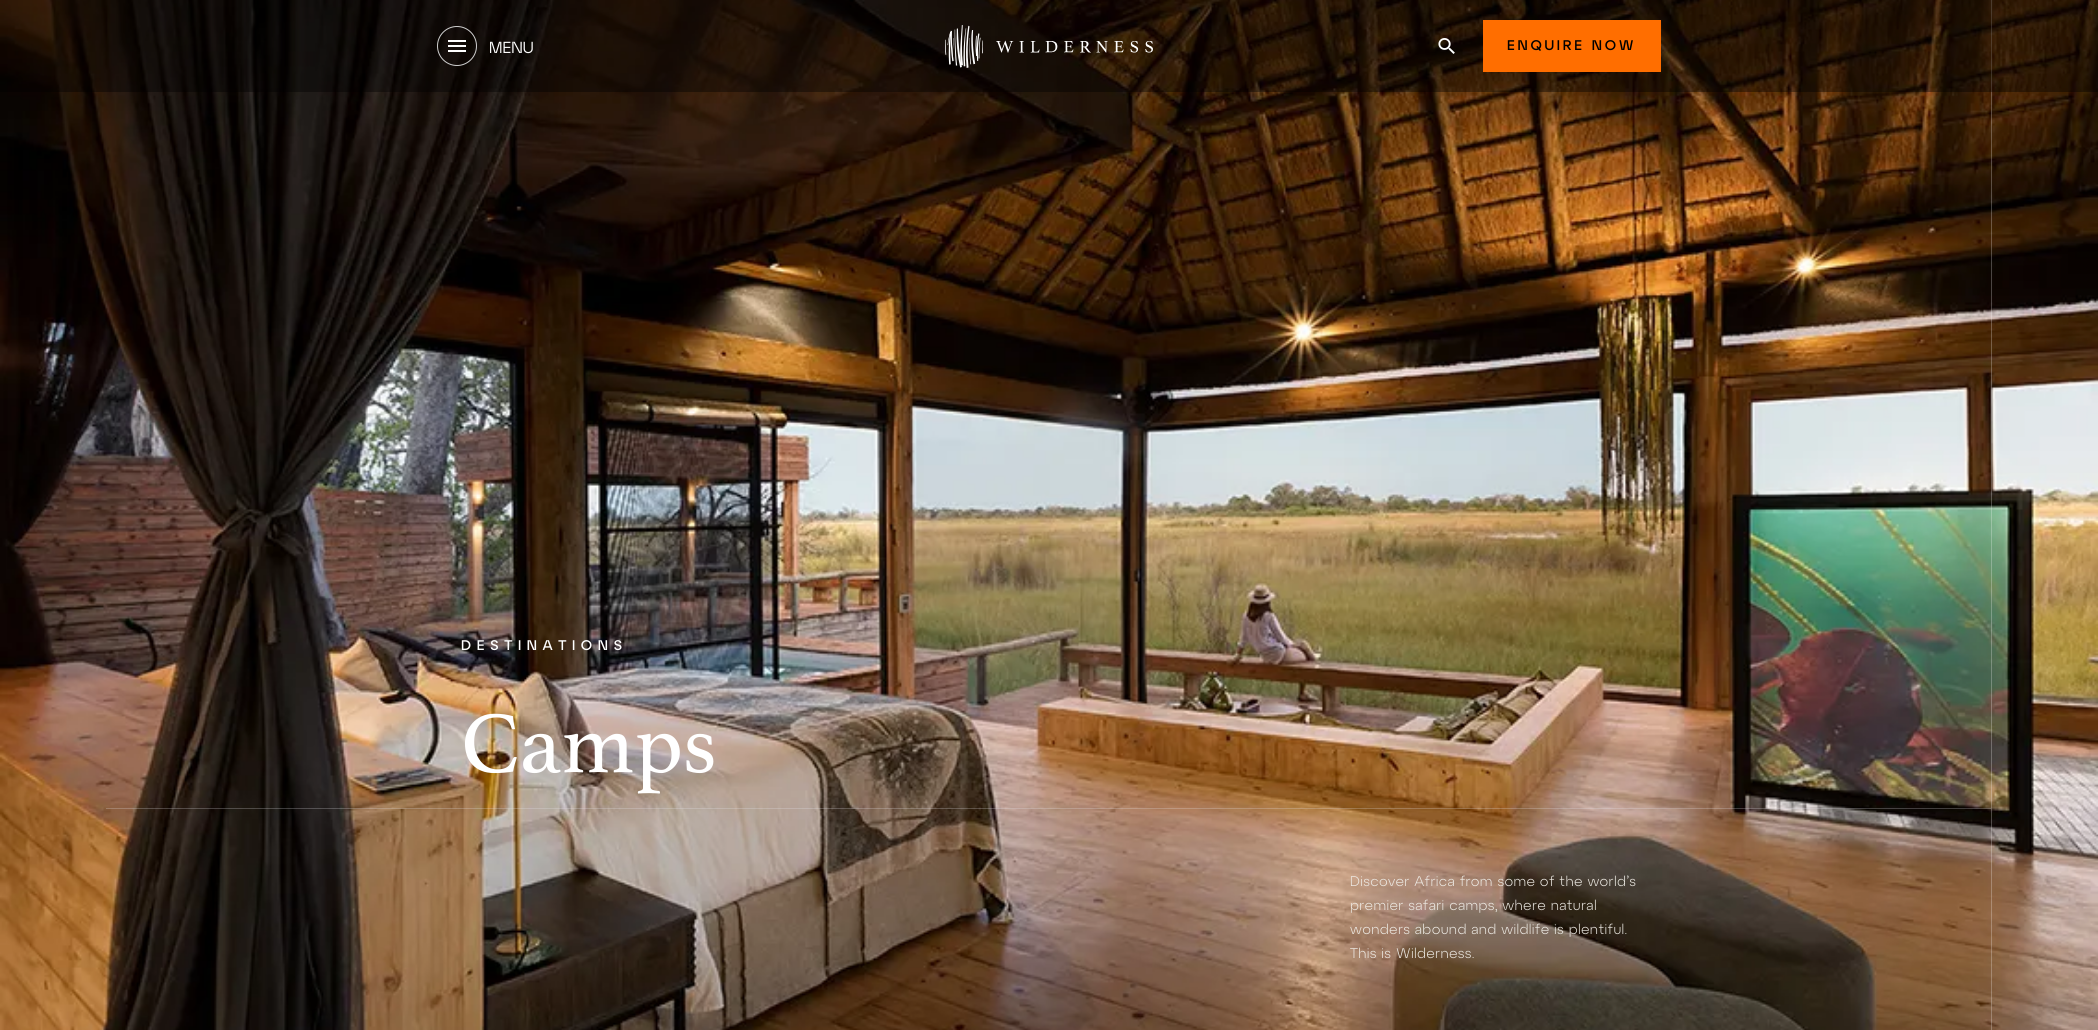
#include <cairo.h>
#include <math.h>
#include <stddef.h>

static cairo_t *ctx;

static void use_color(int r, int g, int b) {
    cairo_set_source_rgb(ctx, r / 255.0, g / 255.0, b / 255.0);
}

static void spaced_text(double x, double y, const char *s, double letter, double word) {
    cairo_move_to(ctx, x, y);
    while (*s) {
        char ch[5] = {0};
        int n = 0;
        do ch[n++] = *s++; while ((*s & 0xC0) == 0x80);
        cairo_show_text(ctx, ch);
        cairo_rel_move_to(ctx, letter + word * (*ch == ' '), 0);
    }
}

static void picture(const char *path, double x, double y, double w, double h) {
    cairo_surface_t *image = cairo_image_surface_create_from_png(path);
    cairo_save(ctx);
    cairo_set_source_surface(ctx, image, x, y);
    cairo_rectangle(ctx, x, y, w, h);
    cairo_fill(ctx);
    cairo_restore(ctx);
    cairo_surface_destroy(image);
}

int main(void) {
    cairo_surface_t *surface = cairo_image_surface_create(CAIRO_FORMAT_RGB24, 2098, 1030);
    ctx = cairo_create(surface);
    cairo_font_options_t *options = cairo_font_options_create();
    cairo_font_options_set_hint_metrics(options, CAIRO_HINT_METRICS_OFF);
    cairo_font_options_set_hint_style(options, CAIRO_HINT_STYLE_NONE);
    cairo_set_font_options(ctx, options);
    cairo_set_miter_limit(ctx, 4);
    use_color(255, 255, 255);
    cairo_paint(ctx);
    picture("img4.png", 0, 0, 2098, 1030);
    cairo_set_source_rgba(ctx, 1, 1, 1, 0.25);
    cairo_rectangle(ctx, 1991, 0, 1, 1030);
    cairo_fill(ctx);
    cairo_set_source_rgba(ctx, 0, 0, 0, 0.4);
    cairo_rectangle(ctx, 0, 0, 2098, 92);
    cairo_fill(ctx);
    cairo_arc(ctx, 457, 46, 19.5, 0, 2 * M_PI);
    use_color(206, 206, 206);
    cairo_set_line_width(ctx, 1);
    cairo_stroke(ctx);
    picture("img1.png", 448, 40, 18, 12);
    cairo_select_font_face(ctx, "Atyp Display", CAIRO_FONT_SLANT_NORMAL, CAIRO_FONT_WEIGHT_NORMAL);
    cairo_set_font_size(ctx, 16);
    use_color(255, 255, 255);
    cairo_move_to(ctx, 489, 53);
    cairo_show_text(ctx, "MENU");
    picture("img2.png", 945, 25, 208, 43);
    picture("img3.png", 1438, 38, 17, 16);
    use_color(255, 110, 0);
    cairo_rectangle(ctx, 1483, 20, 178, 52);
    cairo_fill(ctx);
    cairo_select_font_face(ctx, "Atyp Display Medium", CAIRO_FONT_SLANT_NORMAL, CAIRO_FONT_WEIGHT_NORMAL);
    cairo_set_font_size(ctx, 14);
    use_color(0, 0, 0);
    spaced_text(1507, 50, "ENQUIRE NOW", 2.75, 0);
    use_color(255, 255, 255);
    spaced_text(461, 650, "DESTINATIONS", 5.6, 0);
    cairo_select_font_face(ctx, "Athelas", CAIRO_FONT_SLANT_NORMAL, CAIRO_FONT_WEIGHT_NORMAL);
    cairo_set_font_size(ctx, 88);
    cairo_move_to(ctx, 461, 772);
    cairo_show_text(ctx, "Camps");
    cairo_set_source_rgba(ctx, 0.898, 0.906, 0.922, 0.25);
    cairo_rectangle(ctx, 106, 808, 943, 1);
    cairo_fill(ctx);
    cairo_rectangle(ctx, 1049, 808, 942, 1);
    cairo_fill(ctx);
    cairo_select_font_face(ctx, "Atyp Display Light", CAIRO_FONT_SLANT_NORMAL, CAIRO_FONT_WEIGHT_NORMAL);
    cairo_set_font_size(ctx, 14);
    use_color(238, 235, 229);
    spaced_text(1350, 886, "Discover Africa from some of the world’s", 0.35, 0);
    spaced_text(1350, 910, "premier safari camps, where natural", 0.35, 0);
    spaced_text(1350, 934, "wonders abound and wildlife is plentiful.", 0.35, 0);
    spaced_text(1350, 958, "This is Wilderness.", 0.35, 0);
    cairo_surface_write_to_png(surface, "result.png");
    cairo_font_options_destroy(options);
    cairo_destroy(ctx);
    cairo_surface_destroy(surface);
    return 0;
}
